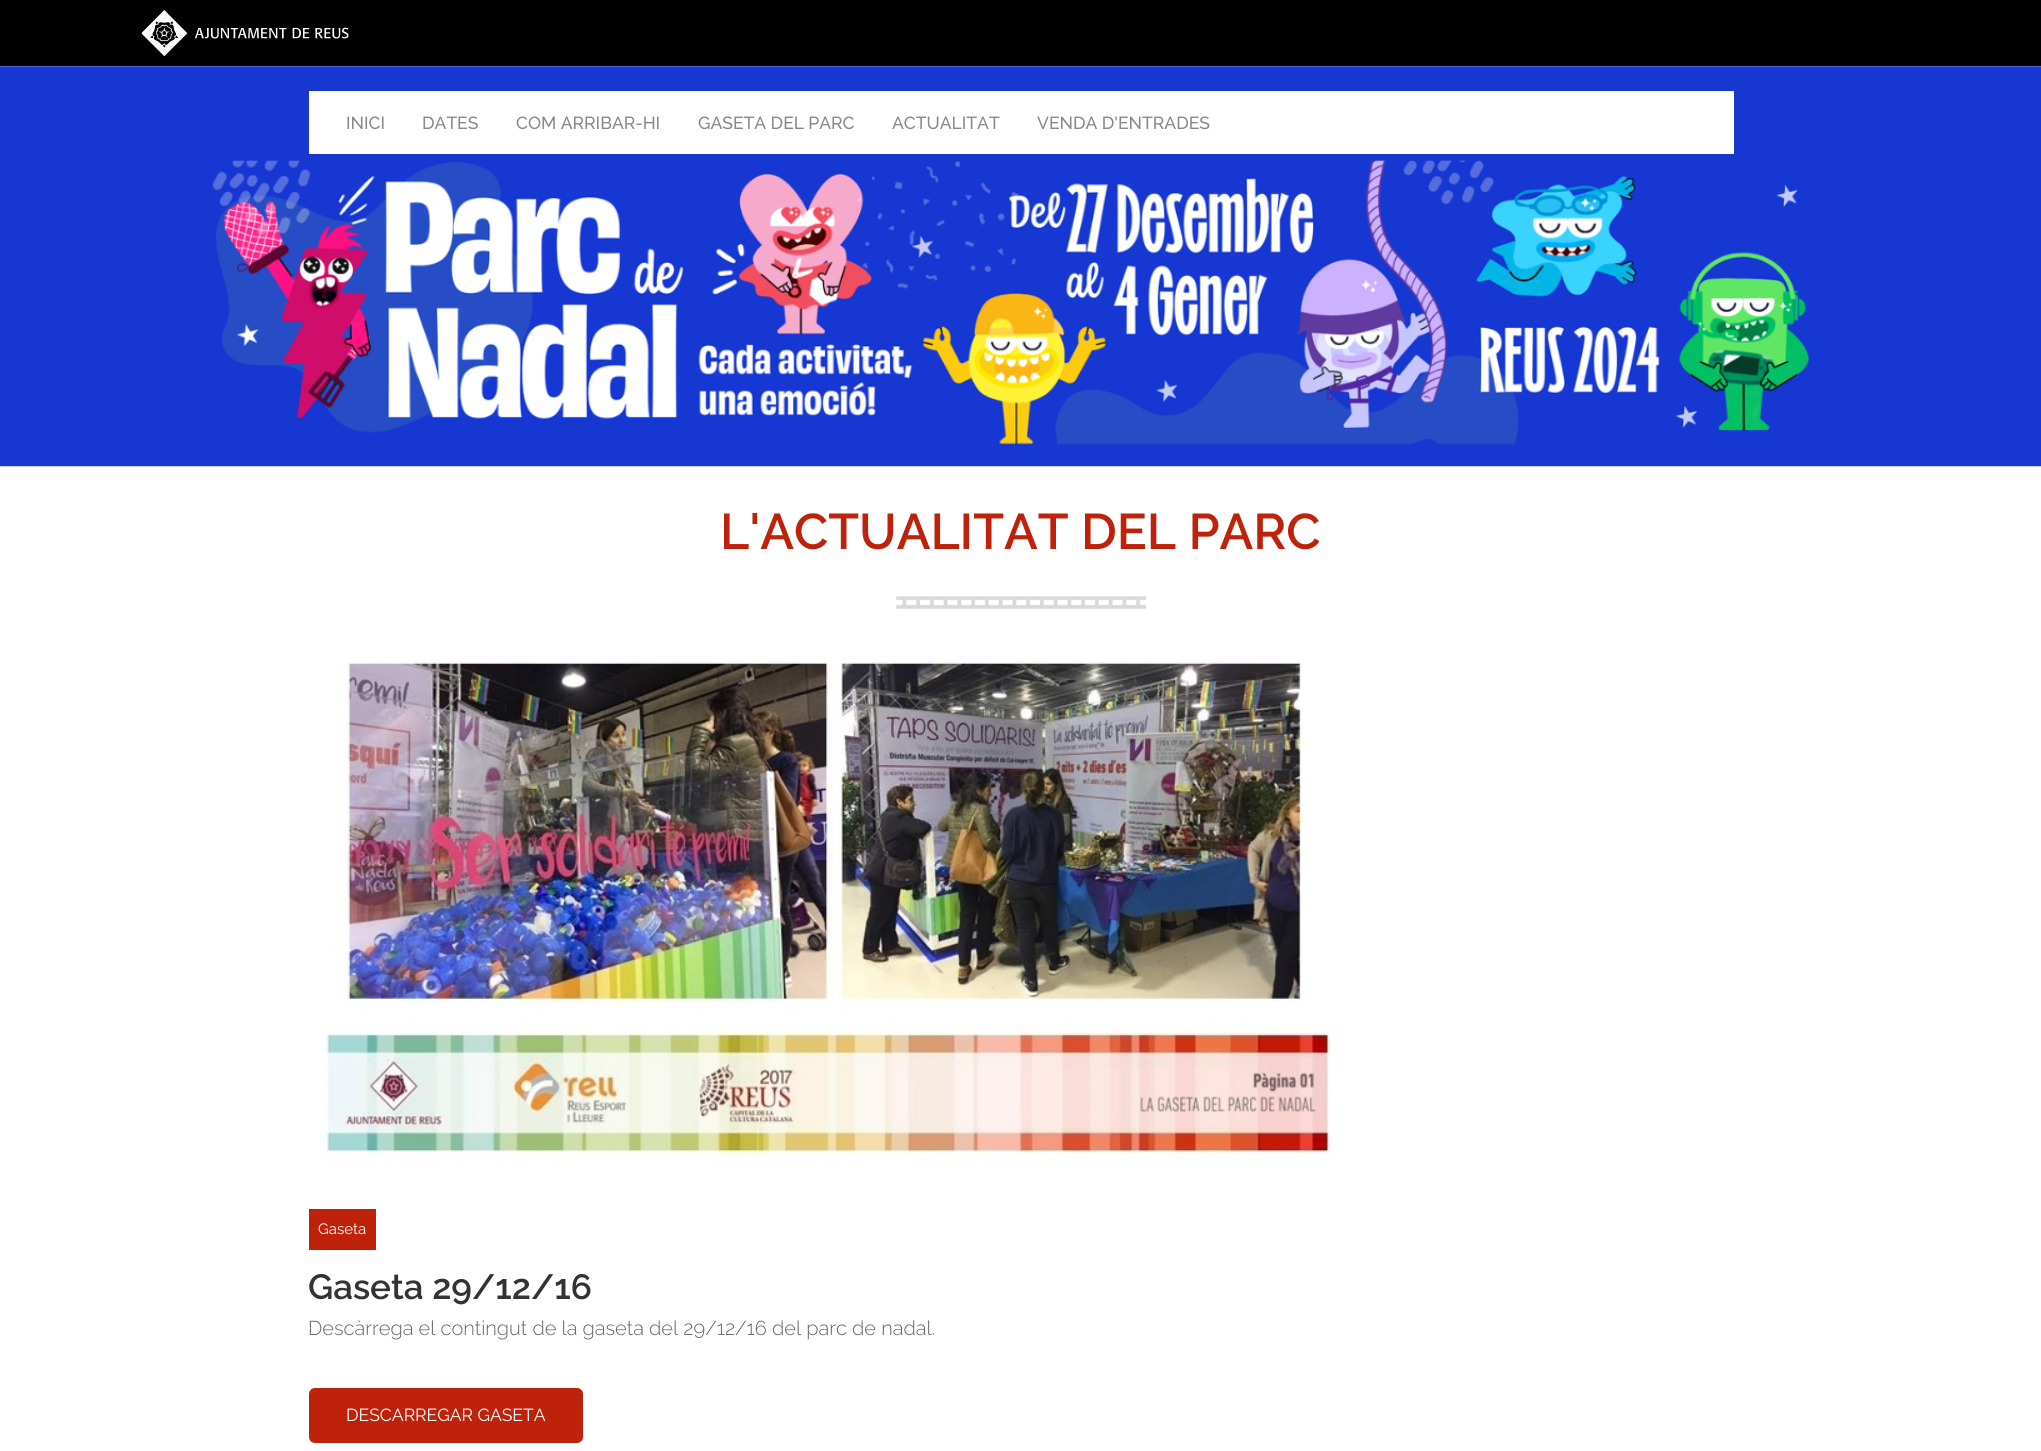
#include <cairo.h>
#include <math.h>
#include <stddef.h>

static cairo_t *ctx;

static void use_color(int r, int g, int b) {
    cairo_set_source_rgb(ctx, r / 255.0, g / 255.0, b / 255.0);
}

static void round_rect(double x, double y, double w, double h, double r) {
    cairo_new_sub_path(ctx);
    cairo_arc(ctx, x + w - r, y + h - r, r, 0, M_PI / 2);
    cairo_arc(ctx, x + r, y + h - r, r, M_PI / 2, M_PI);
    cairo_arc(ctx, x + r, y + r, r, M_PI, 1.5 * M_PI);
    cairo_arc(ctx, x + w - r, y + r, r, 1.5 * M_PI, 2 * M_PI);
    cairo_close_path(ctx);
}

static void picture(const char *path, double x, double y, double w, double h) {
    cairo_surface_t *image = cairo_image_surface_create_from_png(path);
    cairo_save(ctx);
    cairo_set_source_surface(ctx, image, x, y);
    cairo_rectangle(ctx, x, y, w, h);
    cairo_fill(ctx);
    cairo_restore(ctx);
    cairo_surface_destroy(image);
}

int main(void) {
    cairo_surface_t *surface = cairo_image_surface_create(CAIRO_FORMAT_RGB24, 2041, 1451);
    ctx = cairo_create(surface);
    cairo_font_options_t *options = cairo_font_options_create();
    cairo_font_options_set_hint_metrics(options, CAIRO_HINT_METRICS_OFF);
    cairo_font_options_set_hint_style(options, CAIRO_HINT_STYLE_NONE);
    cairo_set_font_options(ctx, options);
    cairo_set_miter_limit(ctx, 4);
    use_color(255, 255, 255);
    cairo_paint(ctx);
    use_color(1, 1, 1);
    cairo_rectangle(ctx, 0, 0, 2041, 66);
    cairo_fill(ctx);
    picture("img1.png", 141, 10, 208, 46);
    picture("img2.png", 0, 66, 2041, 401);
    use_color(255, 255, 255);
    cairo_rectangle(ctx, 309, 91, 1425, 63);
    cairo_fill(ctx);
    cairo_select_font_face(ctx, "Raleway Medium", CAIRO_FONT_SLANT_NORMAL, CAIRO_FONT_WEIGHT_NORMAL);
    cairo_set_font_size(ctx, 17.5);
    use_color(136, 136, 136);
    cairo_move_to(ctx, 346, 129);
    cairo_show_text(ctx, "INICI");
    cairo_move_to(ctx, 422, 129);
    cairo_show_text(ctx, "DATES");
    cairo_move_to(ctx, 516, 129);
    cairo_show_text(ctx, "COM ARRIBAR-HI");
    cairo_move_to(ctx, 698, 129);
    cairo_show_text(ctx, "GASETA DEL PARC");
    cairo_move_to(ctx, 892, 129);
    cairo_show_text(ctx, "ACTUALITAT");
    cairo_move_to(ctx, 1037, 129);
    cairo_show_text(ctx, "VENDA D'ENTRADES");
    cairo_select_font_face(ctx, "Raleway SemiBold", CAIRO_FONT_SLANT_NORMAL, CAIRO_FONT_WEIGHT_NORMAL);
    cairo_set_font_size(ctx, 50);
    use_color(191, 34, 10);
    cairo_move_to(ctx, 720, 549);
    cairo_show_text(ctx, "L'ACTUALITAT DEL PARC");
    picture("img3.png", 896, 596, 251, 13);
    picture("img4.png", 323, 659, 1008, 505);
    cairo_rectangle(ctx, 309, 1209, 67, 41);
    cairo_fill(ctx);
    cairo_select_font_face(ctx, "Raleway", CAIRO_FONT_SLANT_NORMAL, CAIRO_FONT_WEIGHT_NORMAL);
    cairo_set_font_size(ctx, 15);
    use_color(255, 255, 255);
    cairo_move_to(ctx, 318, 1234);
    cairo_show_text(ctx, "Gaseta");
    cairo_select_font_face(ctx, "Raleway SemiBold", CAIRO_FONT_SLANT_NORMAL, CAIRO_FONT_WEIGHT_NORMAL);
    cairo_set_font_size(ctx, 35);
    use_color(51, 51, 51);
    cairo_move_to(ctx, 308, 1299);
    cairo_show_text(ctx, "Gaseta 29/12/16");
    cairo_select_font_face(ctx, "Raleway Light", CAIRO_FONT_SLANT_NORMAL, CAIRO_FONT_WEIGHT_NORMAL);
    cairo_set_font_size(ctx, 20);
    use_color(102, 102, 102);
    cairo_move_to(ctx, 308, 1335);
    cairo_show_text(ctx, "Descàrrega el contingut de la gaseta del 29/12/16 del parc de nadal.");
    use_color(191, 34, 10);
    round_rect(309, 1388, 274, 55, 6);
    cairo_fill(ctx);
    cairo_select_font_face(ctx, "Raleway", CAIRO_FONT_SLANT_NORMAL, CAIRO_FONT_WEIGHT_NORMAL);
    cairo_set_font_size(ctx, 17.5);
    use_color(255, 255, 255);
    cairo_move_to(ctx, 346, 1421);
    cairo_show_text(ctx, "DESCARREGAR GASETA");
    cairo_surface_write_to_png(surface, "result.png");
    cairo_font_options_destroy(options);
    cairo_destroy(ctx);
    cairo_surface_destroy(surface);
    return 0;
}
